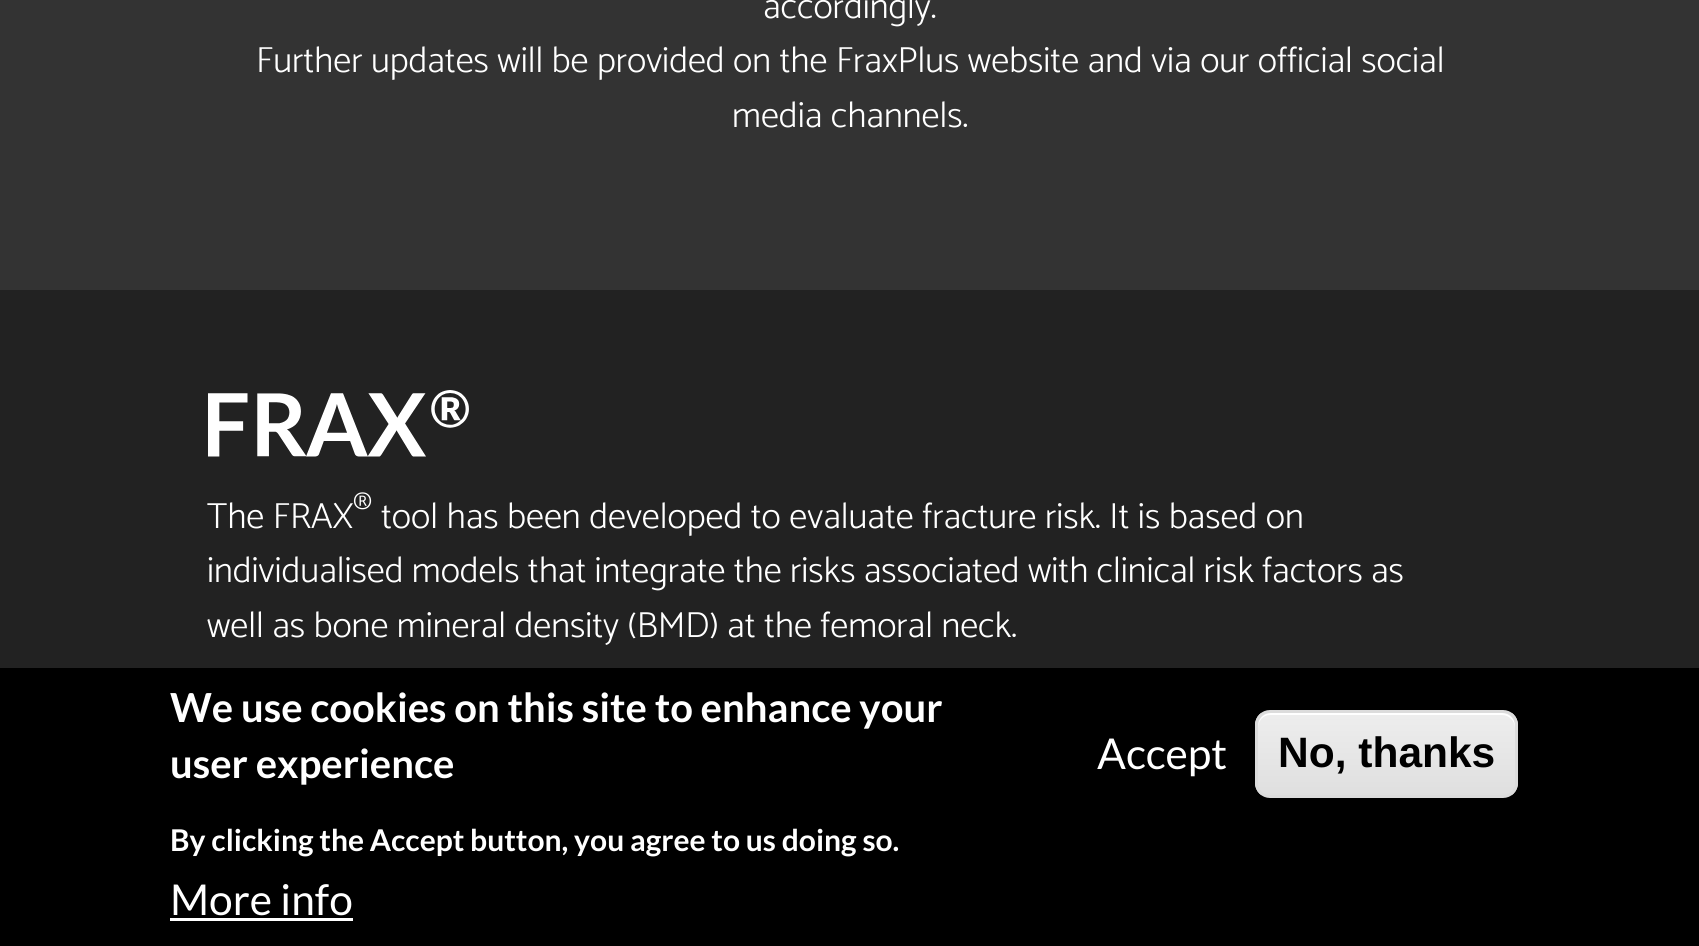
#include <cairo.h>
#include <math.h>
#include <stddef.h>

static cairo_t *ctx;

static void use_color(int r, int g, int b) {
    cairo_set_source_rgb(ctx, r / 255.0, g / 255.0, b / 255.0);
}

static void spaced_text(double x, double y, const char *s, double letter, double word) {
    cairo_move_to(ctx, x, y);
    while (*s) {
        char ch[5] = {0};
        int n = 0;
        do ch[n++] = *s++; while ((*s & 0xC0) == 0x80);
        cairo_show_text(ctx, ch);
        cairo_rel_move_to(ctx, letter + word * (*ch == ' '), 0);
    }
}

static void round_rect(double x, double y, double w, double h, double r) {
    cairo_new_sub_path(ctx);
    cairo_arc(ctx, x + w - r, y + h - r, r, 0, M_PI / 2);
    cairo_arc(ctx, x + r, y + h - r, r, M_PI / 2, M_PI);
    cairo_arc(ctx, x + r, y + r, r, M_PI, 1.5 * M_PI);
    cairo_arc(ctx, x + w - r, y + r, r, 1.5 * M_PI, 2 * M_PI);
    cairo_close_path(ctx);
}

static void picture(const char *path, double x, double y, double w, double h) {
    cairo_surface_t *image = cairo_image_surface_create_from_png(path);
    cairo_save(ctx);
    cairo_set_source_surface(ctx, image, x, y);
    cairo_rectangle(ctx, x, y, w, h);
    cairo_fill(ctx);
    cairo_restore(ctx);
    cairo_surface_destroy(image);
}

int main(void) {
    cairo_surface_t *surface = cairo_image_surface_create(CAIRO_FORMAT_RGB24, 1699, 946);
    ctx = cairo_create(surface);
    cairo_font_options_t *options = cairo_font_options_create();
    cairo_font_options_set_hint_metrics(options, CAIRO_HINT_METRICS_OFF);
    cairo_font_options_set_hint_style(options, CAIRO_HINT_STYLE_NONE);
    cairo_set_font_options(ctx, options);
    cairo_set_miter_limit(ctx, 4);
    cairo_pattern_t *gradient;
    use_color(34, 34, 34);
    cairo_paint(ctx);
    use_color(51, 51, 51);
    cairo_rectangle(ctx, 0, 0, 1699, 290);
    cairo_fill(ctx);
    cairo_select_font_face(ctx, "Catamaran Thin", CAIRO_FONT_SLANT_NORMAL, CAIRO_FONT_WEIGHT_NORMAL);
    cairo_set_font_size(ctx, 36.4);
    use_color(255, 255, 255);
    cairo_move_to(ctx, 763, 18);
    cairo_show_text(ctx, "accordingly.");
    spaced_text(256, 72, "Further updates will be provided on the FraxPlus website and via our official social", 0, -0.1);
    cairo_move_to(ctx, 732, 127);
    cairo_show_text(ctx, "media channels.");
    picture("img1.png", 208, 390, 261, 67);
    cairo_move_to(ctx, 207, 528);
    cairo_show_text(ctx, "The FRAX");
    cairo_set_font_size(ctx, 27);
    cairo_move_to(ctx, 353, 514);
    cairo_show_text(ctx, "®");
    cairo_set_font_size(ctx, 36.4);
    cairo_move_to(ctx, 381, 528);
    cairo_show_text(ctx, "tool has been developed to evaluate fracture risk. It is based on");
    spaced_text(207, 582, "individualised models that integrate the risks associated with clinical risk factors as", 0, -0.25);
    spaced_text(207, 637, "well as bone mineral density (BMD) at the femoral neck.", 0, -0.1);
    use_color(0, 0, 0);
    cairo_rectangle(ctx, 0, 668, 1699, 278);
    cairo_fill(ctx);
    cairo_select_font_face(ctx, "Lato", CAIRO_FONT_SLANT_NORMAL, CAIRO_FONT_WEIGHT_BOLD);
    cairo_set_font_size(ctx, 40);
    use_color(255, 255, 255);
    cairo_move_to(ctx, 170, 722);
    cairo_show_text(ctx, "We use cookies on this site to enhance your");
    cairo_move_to(ctx, 170, 778);
    cairo_show_text(ctx, "user experience");
    cairo_set_font_size(ctx, 30);
    cairo_move_to(ctx, 170, 851);
    cairo_show_text(ctx, "By clicking the Accept button, you agree to us doing so.");
    cairo_select_font_face(ctx, "Lato", CAIRO_FONT_SLANT_NORMAL, CAIRO_FONT_WEIGHT_NORMAL);
    cairo_set_font_size(ctx, 42.5);
    cairo_move_to(ctx, 170, 915);
    cairo_show_text(ctx, "More info");
    cairo_rectangle(ctx, 170, 918, 183, 3);
    cairo_fill(ctx);
    cairo_move_to(ctx, 1097, 769);
    cairo_show_text(ctx, "Accept");
    cairo_save(ctx);
    round_rect(1255, 710, 263, 88, 15);
    cairo_clip(ctx);
    gradient = cairo_pattern_create_linear(1386, 713, 1386, 795);
    cairo_pattern_add_color_stop_rgba(gradient, 0.05, 0.929, 0.929, 0.929, 1);
    cairo_pattern_add_color_stop_rgba(gradient, 1, 0.875, 0.875, 0.875, 1);
    cairo_set_source(ctx, gradient);
    cairo_pattern_destroy(gradient);
    cairo_rectangle(ctx, 1255, 713, 263, 82);
    cairo_fill(ctx);
    cairo_restore(ctx);
    cairo_new_path(ctx);
    cairo_move_to(ctx, 1270, 715);
    cairo_line_to(ctx, 1502, 715);
    cairo_curve_to(ctx, 1509, 715, 1515, 721, 1515, 728);
    cairo_line_to(ctx, 1515, 726);
    cairo_curve_to(ctx, 1515, 719, 1509, 713, 1502, 713);
    cairo_line_to(ctx, 1271, 713);
    cairo_curve_to(ctx, 1264, 713, 1258, 719, 1258, 726);
    cairo_line_to(ctx, 1258, 728);
    cairo_curve_to(ctx, 1258, 721, 1263, 715, 1270, 715);
    cairo_close_path(ctx);
    cairo_fill(ctx);
    round_rect(1256.5, 711.5, 260, 85, 13.5);
    use_color(220, 220, 220);
    cairo_set_line_width(ctx, 3);
    cairo_stroke(ctx);
    cairo_select_font_face(ctx, "Liberation Sans", CAIRO_FONT_SLANT_NORMAL, CAIRO_FONT_WEIGHT_BOLD);
    use_color(0, 0, 0);
    cairo_move_to(ctx, 1278, 767);
    cairo_show_text(ctx, "No, thanks");
    cairo_surface_write_to_png(surface, "result.png");
    cairo_font_options_destroy(options);
    cairo_destroy(ctx);
    cairo_surface_destroy(surface);
    return 0;
}
